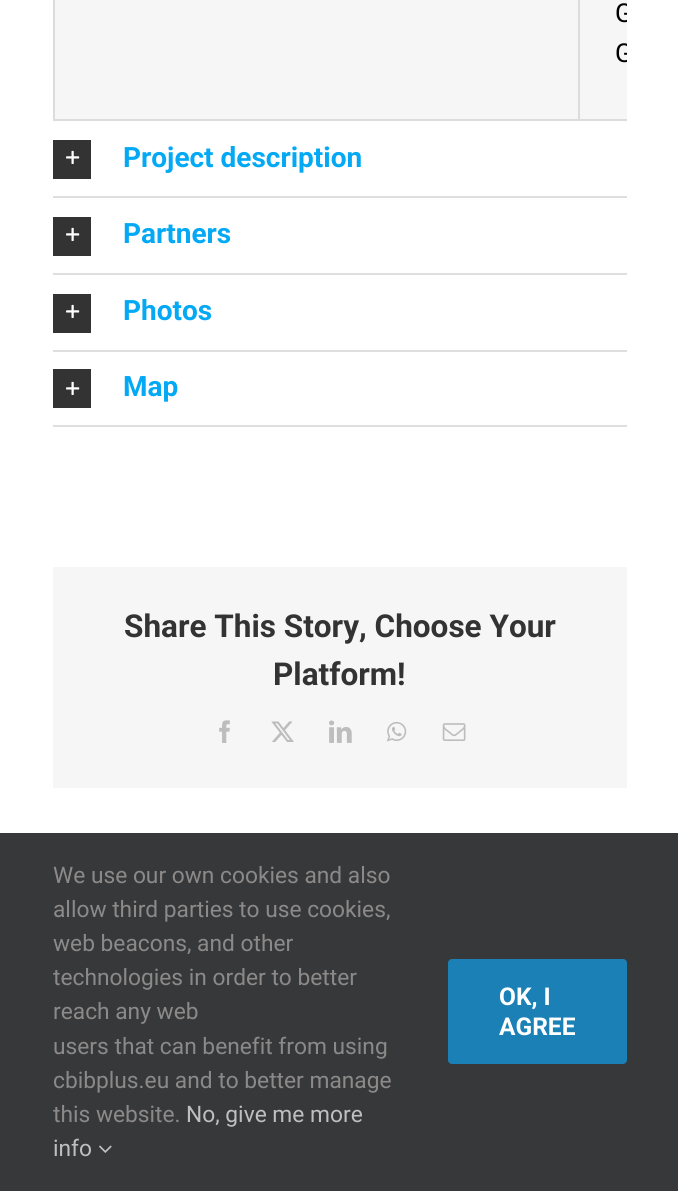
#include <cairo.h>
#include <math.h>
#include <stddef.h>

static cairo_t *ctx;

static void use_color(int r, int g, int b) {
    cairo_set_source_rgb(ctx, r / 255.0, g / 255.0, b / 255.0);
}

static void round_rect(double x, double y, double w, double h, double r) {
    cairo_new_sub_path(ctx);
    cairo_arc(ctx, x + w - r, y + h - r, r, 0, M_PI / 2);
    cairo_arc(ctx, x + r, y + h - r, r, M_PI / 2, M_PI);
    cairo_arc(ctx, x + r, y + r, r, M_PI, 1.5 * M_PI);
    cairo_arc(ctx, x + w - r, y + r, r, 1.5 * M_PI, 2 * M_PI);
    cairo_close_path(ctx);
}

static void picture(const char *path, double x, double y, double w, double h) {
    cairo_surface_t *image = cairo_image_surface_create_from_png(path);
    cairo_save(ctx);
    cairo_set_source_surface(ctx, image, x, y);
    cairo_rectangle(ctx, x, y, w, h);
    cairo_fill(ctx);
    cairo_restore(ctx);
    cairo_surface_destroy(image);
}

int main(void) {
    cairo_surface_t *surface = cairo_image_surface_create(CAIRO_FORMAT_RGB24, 678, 1191);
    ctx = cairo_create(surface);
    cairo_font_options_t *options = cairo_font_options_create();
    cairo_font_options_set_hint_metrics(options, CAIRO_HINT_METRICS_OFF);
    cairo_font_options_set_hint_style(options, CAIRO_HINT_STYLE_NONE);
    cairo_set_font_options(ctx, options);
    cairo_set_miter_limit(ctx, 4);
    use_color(255, 255, 255);
    cairo_paint(ctx);
    use_color(220, 220, 220);
    cairo_rectangle(ctx, 53, 119, 574, 2);
    cairo_fill(ctx);
    cairo_rectangle(ctx, 53, 0, 2, 121);
    cairo_fill(ctx);
    use_color(246, 246, 246);
    cairo_rectangle(ctx, 55, 0, 572, 119);
    cairo_fill(ctx);
    use_color(220, 220, 220);
    cairo_rectangle(ctx, 578, 0, 2, 121);
    cairo_fill(ctx);
    cairo_save(ctx);
    cairo_rectangle(ctx, 53, 0, 574, 121);
    cairo_clip(ctx);
    cairo_select_font_face(ctx, "Roboto", CAIRO_FONT_SLANT_NORMAL, CAIRO_FONT_WEIGHT_NORMAL);
    cairo_set_font_size(ctx, 26);
    use_color(0, 0, 0);
    cairo_move_to(ctx, 615, 22);
    cairo_show_text(ctx, "G");
    cairo_move_to(ctx, 615, 62);
    cairo_show_text(ctx, "G");
    cairo_restore(ctx);
    use_color(224, 222, 222);
    cairo_rectangle(ctx, 53, 196, 574, 2);
    cairo_fill(ctx);
    use_color(51, 51, 51);
    cairo_rectangle(ctx, 53, 140, 38, 39);
    cairo_fill(ctx);
    picture("img1.png", 66, 150, 14, 14);
    cairo_select_font_face(ctx, "Roboto", CAIRO_FONT_SLANT_NORMAL, CAIRO_FONT_WEIGHT_BOLD);
    cairo_set_font_size(ctx, 28);
    use_color(3, 169, 244);
    cairo_move_to(ctx, 123, 167);
    cairo_show_text(ctx, "Project description");
    use_color(224, 222, 222);
    cairo_rectangle(ctx, 53, 273, 574, 2);
    cairo_fill(ctx);
    use_color(51, 51, 51);
    cairo_rectangle(ctx, 53, 217, 38, 39);
    cairo_fill(ctx);
    picture("img1.png", 66, 227, 14, 14);
    use_color(3, 169, 244);
    cairo_move_to(ctx, 123, 243);
    cairo_show_text(ctx, "Partners");
    use_color(224, 222, 222);
    cairo_rectangle(ctx, 53, 350, 574, 2);
    cairo_fill(ctx);
    use_color(51, 51, 51);
    cairo_rectangle(ctx, 53, 294, 38, 39);
    cairo_fill(ctx);
    picture("img1.png", 66, 304, 14, 14);
    use_color(3, 169, 244);
    cairo_move_to(ctx, 123, 320);
    cairo_show_text(ctx, "Photos");
    use_color(224, 222, 222);
    cairo_rectangle(ctx, 53, 425, 574, 2);
    cairo_fill(ctx);
    use_color(51, 51, 51);
    cairo_rectangle(ctx, 53, 369, 38, 39);
    cairo_fill(ctx);
    picture("img1.png", 66, 381, 14, 14);
    use_color(3, 169, 244);
    cairo_move_to(ctx, 123, 396);
    cairo_show_text(ctx, "Map");
    use_color(246, 246, 246);
    cairo_rectangle(ctx, 53, 567, 574, 221);
    cairo_fill(ctx);
    cairo_set_font_size(ctx, 31.5);
    use_color(51, 51, 51);
    cairo_move_to(ctx, 124, 637);
    cairo_show_text(ctx, "Share This Story, Choose Your");
    cairo_move_to(ctx, 273, 685);
    cairo_show_text(ctx, "Platform!");
    picture("img2.png", 219, 720, 11, 23);
    picture("img3.png", 271, 721, 23, 21);
    picture("img4.png", 329, 720, 23, 23);
    picture("img5.png", 386, 721, 21, 21);
    picture("img6.png", 442, 723, 24, 18);
    use_color(54, 56, 57);
    cairo_rectangle(ctx, 0, 833, 678, 358);
    cairo_fill(ctx);
    cairo_select_font_face(ctx, "Roboto", CAIRO_FONT_SLANT_NORMAL, CAIRO_FONT_WEIGHT_NORMAL);
    cairo_set_font_size(ctx, 22.75);
    use_color(140, 137, 137);
    cairo_move_to(ctx, 53, 883);
    cairo_show_text(ctx, "We use our own cookies and also");
    cairo_move_to(ctx, 53, 917);
    cairo_show_text(ctx, "allow third parties to use cookies,");
    cairo_move_to(ctx, 53, 951);
    cairo_show_text(ctx, "web beacons, and other");
    cairo_move_to(ctx, 53, 985);
    cairo_show_text(ctx, "technologies in order to better");
    cairo_move_to(ctx, 53, 1019);
    cairo_show_text(ctx, "reach any web");
    cairo_move_to(ctx, 53, 1054);
    cairo_show_text(ctx, "users that can benefit from using");
    cairo_move_to(ctx, 53, 1088);
    cairo_show_text(ctx, "cbibplus.eu and to better manage");
    cairo_move_to(ctx, 53, 1122);
    cairo_show_text(ctx, "this website.");
    use_color(191, 191, 191);
    cairo_move_to(ctx, 186, 1122);
    cairo_show_text(ctx, "No, give me more");
    cairo_move_to(ctx, 53, 1156);
    cairo_show_text(ctx, "info");
    picture("img7.png", 99, 1145, 13, 8);
    use_color(26, 128, 182);
    round_rect(448, 959, 179, 105, 4);
    cairo_fill(ctx);
    cairo_select_font_face(ctx, "Roboto", CAIRO_FONT_SLANT_NORMAL, CAIRO_FONT_WEIGHT_BOLD);
    cairo_set_font_size(ctx, 24.5);
    use_color(255, 255, 255);
    cairo_move_to(ctx, 499, 1005);
    cairo_show_text(ctx, "OK, I");
    cairo_move_to(ctx, 499, 1035);
    cairo_show_text(ctx, "AGREE");
    cairo_surface_write_to_png(surface, "result.png");
    cairo_font_options_destroy(options);
    cairo_destroy(ctx);
    cairo_surface_destroy(surface);
    return 0;
}
